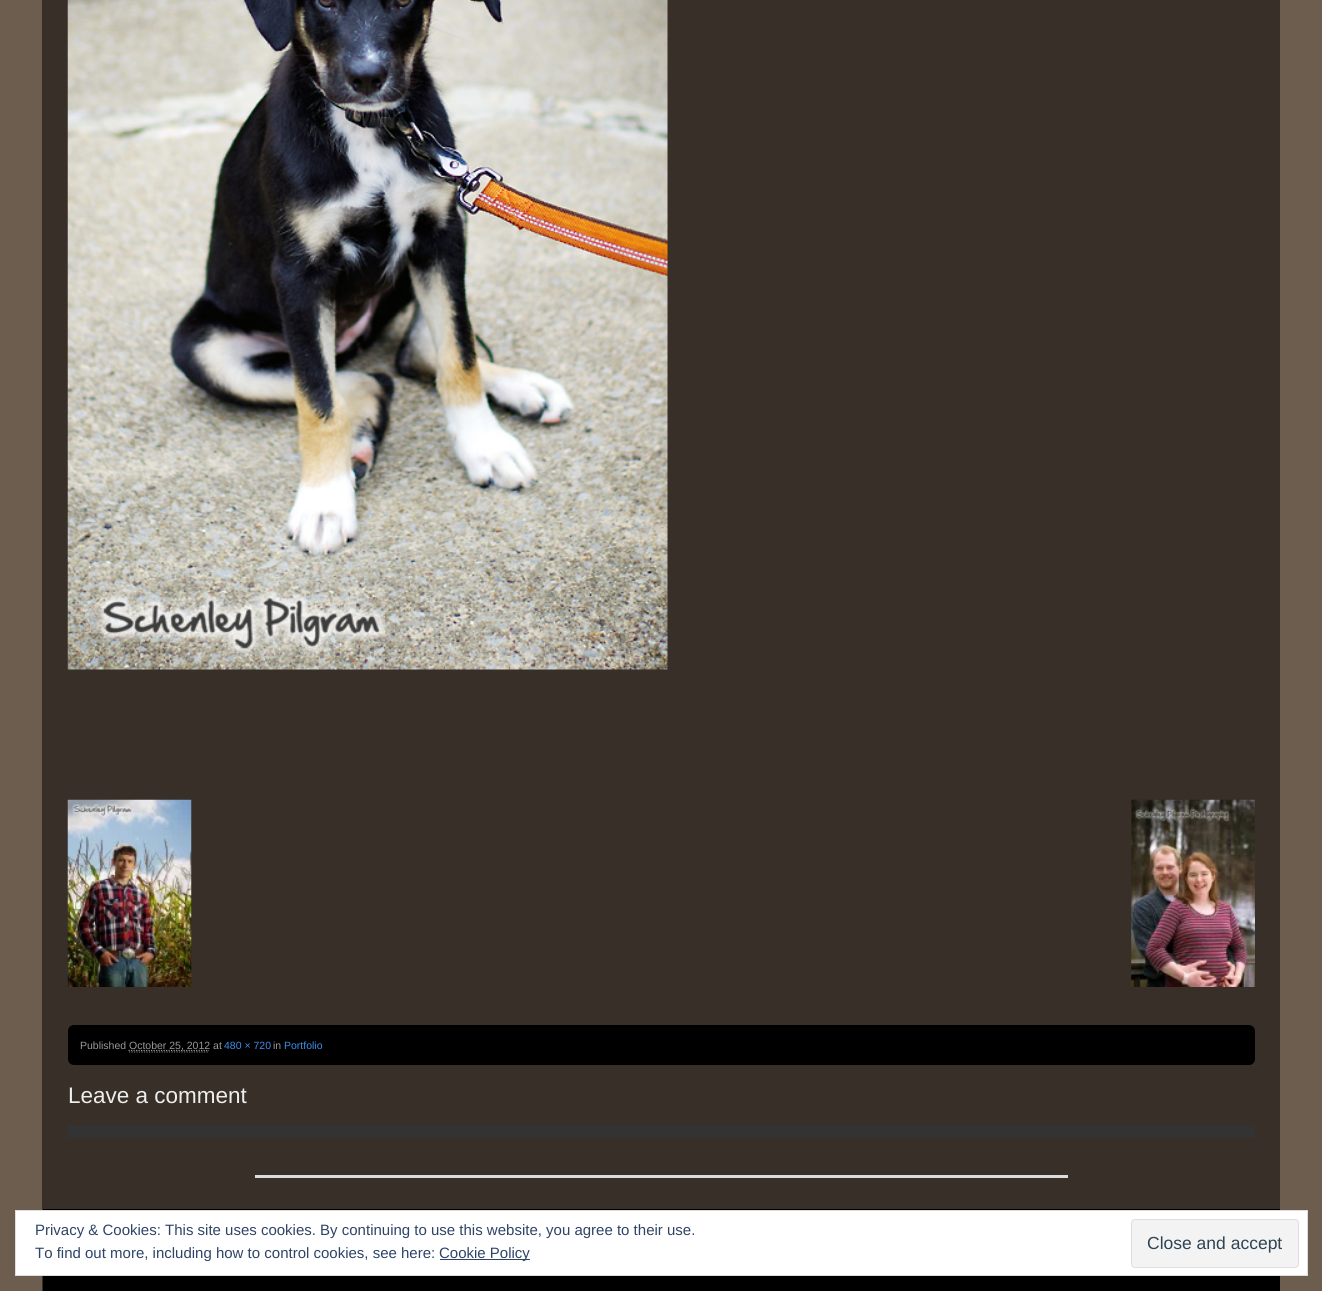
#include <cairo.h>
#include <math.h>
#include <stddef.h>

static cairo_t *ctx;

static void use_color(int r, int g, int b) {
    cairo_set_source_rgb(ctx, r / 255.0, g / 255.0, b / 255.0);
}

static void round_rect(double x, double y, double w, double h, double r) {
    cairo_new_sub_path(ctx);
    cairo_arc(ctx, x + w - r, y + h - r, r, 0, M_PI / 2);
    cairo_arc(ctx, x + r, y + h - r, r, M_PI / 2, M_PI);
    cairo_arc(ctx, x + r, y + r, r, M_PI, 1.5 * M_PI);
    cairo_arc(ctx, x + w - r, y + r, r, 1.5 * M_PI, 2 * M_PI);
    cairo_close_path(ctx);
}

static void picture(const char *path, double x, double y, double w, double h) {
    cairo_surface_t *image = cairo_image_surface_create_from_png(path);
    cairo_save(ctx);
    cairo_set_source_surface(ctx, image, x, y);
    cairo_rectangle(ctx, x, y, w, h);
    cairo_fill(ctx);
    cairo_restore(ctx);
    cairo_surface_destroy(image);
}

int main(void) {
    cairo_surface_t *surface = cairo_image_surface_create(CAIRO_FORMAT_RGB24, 1322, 1291);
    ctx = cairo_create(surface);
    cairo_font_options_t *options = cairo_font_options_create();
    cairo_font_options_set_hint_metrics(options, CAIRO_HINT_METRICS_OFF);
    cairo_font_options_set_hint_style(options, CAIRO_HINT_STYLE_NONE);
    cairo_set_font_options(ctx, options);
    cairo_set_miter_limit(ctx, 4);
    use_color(109, 93, 79);
    cairo_paint(ctx);
    use_color(55, 47, 40);
    cairo_rectangle(ctx, 42, 0, 1238, 1291);
    cairo_fill(ctx);
    picture("img1.png", 67, 0, 601, 670);
    picture("img2.png", 67, 799, 125, 188);
    picture("img3.png", 1131, 799, 124, 188);
    use_color(0, 0, 0);
    round_rect(68, 1025, 1187, 40, 6);
    cairo_fill(ctx);
    cairo_select_font_face(ctx, "Liberation Sans", CAIRO_FONT_SLANT_NORMAL, CAIRO_FONT_WEIGHT_NORMAL);
    cairo_set_font_size(ctx, 10.5);
    use_color(153, 153, 153);
    cairo_move_to(ctx, 80, 1049);
    cairo_show_text(ctx, "Published");
    cairo_new_path(ctx);
    cairo_move_to(ctx, 129, 1052);
    cairo_line_to(ctx, 209, 1052);
    use_color(102, 102, 102);
    cairo_set_line_width(ctx, 1.2);
    cairo_set_dash(ctx, (double[]){1.25, 1.25}, 2, 0);
    cairo_stroke(ctx);
    cairo_new_path(ctx);
    cairo_move_to(ctx, 128.5, 1050.5);
    cairo_line_to(ctx, 209, 1050.5);
    use_color(153, 153, 153);
    cairo_stroke(ctx);
    cairo_move_to(ctx, 129, 1049);
    cairo_show_text(ctx, "October 25, 2012 at");
    use_color(66, 140, 231);
    cairo_move_to(ctx, 224, 1049);
    cairo_show_text(ctx, "480 × 720");
    use_color(153, 153, 153);
    cairo_move_to(ctx, 273, 1049);
    cairo_show_text(ctx, "in");
    use_color(66, 140, 231);
    cairo_move_to(ctx, 284, 1049);
    cairo_show_text(ctx, "Portfolio");
    cairo_set_font_size(ctx, 22.5);
    use_color(238, 238, 238);
    cairo_move_to(ctx, 68, 1103);
    cairo_show_text(ctx, "Leave a comment");
    use_color(51, 51, 51);
    cairo_rectangle(ctx, 68, 1125, 1187, 13);
    cairo_fill(ctx);
    use_color(220, 220, 222);
    cairo_rectangle(ctx, 255, 1175, 813, 3);
    cairo_fill(ctx);
    use_color(0, 0, 0);
    cairo_rectangle(ctx, 43, 1209, 1237, 82);
    cairo_fill(ctx);
    use_color(255, 255, 255);
    cairo_rectangle(ctx, 15.5, 1210.5, 1292, 65);
    cairo_fill_preserve(ctx);
    use_color(222, 222, 222);
    cairo_set_line_width(ctx, 1);
    cairo_set_dash(ctx, NULL, 0, 0);
    cairo_stroke(ctx);
    cairo_set_font_size(ctx, 15);
    use_color(46, 68, 103);
    cairo_move_to(ctx, 35, 1235);
    cairo_show_text(ctx, "Privacy & Cookies: This site uses cookies. By continuing to use this website, you agree to their use.");
    use_color(243, 243, 243);
    round_rect(1131.5, 1219.5, 167, 48, 3.5);
    cairo_fill_preserve(ctx);
    use_color(222, 222, 222);
    cairo_stroke(ctx);
    cairo_set_font_size(ctx, 17.5);
    use_color(46, 68, 83);
    cairo_move_to(ctx, 1147, 1249);
    cairo_show_text(ctx, "Close and accept");
    cairo_set_font_size(ctx, 15);
    use_color(46, 68, 103);
    cairo_move_to(ctx, 35, 1258);
    cairo_show_text(ctx, "To find out more, including how to control cookies, see here:");
    cairo_rectangle(ctx, 440, 1259, 90, 1);
    cairo_fill(ctx);
    cairo_move_to(ctx, 439, 1258);
    cairo_show_text(ctx, "Cookie Policy");
    cairo_surface_write_to_png(surface, "result.png");
    cairo_font_options_destroy(options);
    cairo_destroy(ctx);
    cairo_surface_destroy(surface);
    return 0;
}
